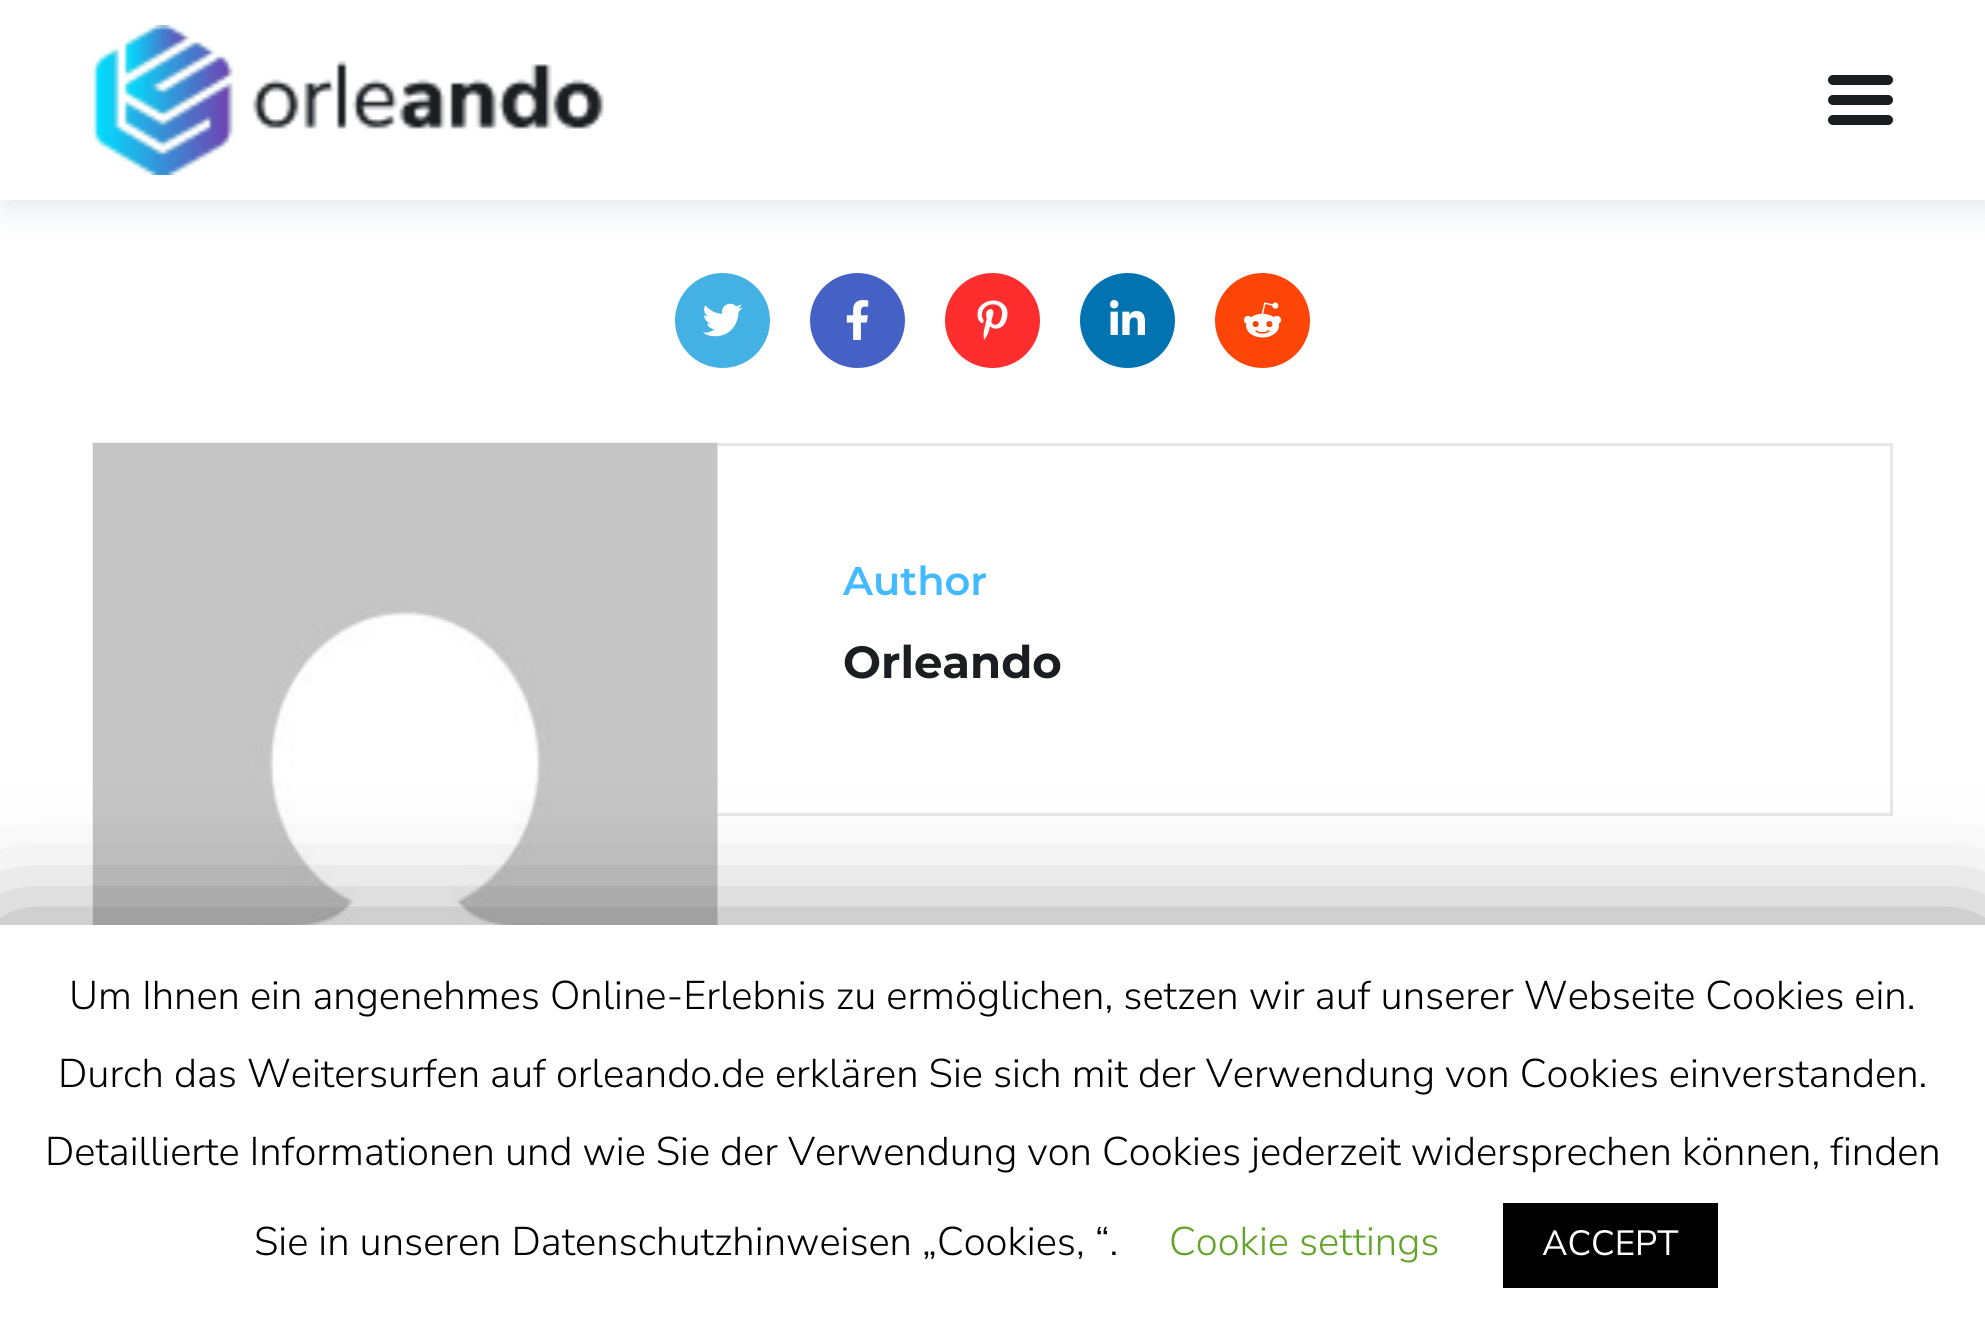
#include <cairo.h>
#include <math.h>
#include <stddef.h>

static cairo_t *ctx;

static void use_color(int r, int g, int b) {
    cairo_set_source_rgb(ctx, r / 255.0, g / 255.0, b / 255.0);
}

static void round_rect(double x, double y, double w, double h, double r) {
    cairo_new_sub_path(ctx);
    cairo_arc(ctx, x + w - r, y + h - r, r, 0, M_PI / 2);
    cairo_arc(ctx, x + r, y + h - r, r, M_PI / 2, M_PI);
    cairo_arc(ctx, x + r, y + r, r, M_PI, 1.5 * M_PI);
    cairo_arc(ctx, x + w - r, y + r, r, 1.5 * M_PI, 2 * M_PI);
    cairo_close_path(ctx);
}

static void shadow(double x, double y, double w, double h, double r, double blur, double alpha) {
    cairo_push_group_with_content(ctx, CAIRO_CONTENT_ALPHA);
    cairo_set_operator(ctx, CAIRO_OPERATOR_SOURCE);
    for (int i = 15; i >= -15 && fmin(w, h) + blur * i / 3 > 0; i -= 2) {
        double e = blur * i / 6;
        cairo_set_source_rgba(ctx, 0, 0, 0, alpha * erfc((i - 1) / 8.5) / 2);
        round_rect(x - e, y - e, w + 2 * e, h + 2 * e, fmax(0, fmin(r + e + blur * .6, fmin(w, h) / 2 + e)));
        cairo_fill(ctx);
    }
    cairo_pattern_t *soft = cairo_pop_group(ctx);
    cairo_mask(ctx, soft);
    cairo_pattern_destroy(soft);
}

static void picture(const char *path, double x, double y, double w, double h) {
    cairo_surface_t *image = cairo_image_surface_create_from_png(path);
    cairo_save(ctx);
    cairo_set_source_surface(ctx, image, x, y);
    cairo_rectangle(ctx, x, y, w, h);
    cairo_fill(ctx);
    cairo_restore(ctx);
    cairo_surface_destroy(image);
}

int main(void) {
    cairo_surface_t *surface = cairo_image_surface_create(CAIRO_FORMAT_RGB24, 1985, 1331);
    ctx = cairo_create(surface);
    cairo_font_options_t *options = cairo_font_options_create();
    cairo_font_options_set_hint_metrics(options, CAIRO_HINT_METRICS_OFF);
    cairo_font_options_set_hint_style(options, CAIRO_HINT_STYLE_NONE);
    cairo_set_font_options(ctx, options);
    cairo_set_miter_limit(ctx, 4);
    use_color(255, 255, 255);
    cairo_paint(ctx);
    use_color(42, 67, 113);
    shadow(5, 5, 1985, 200, 0, 19, 0.15);
    use_color(255, 255, 255);
    cairo_rectangle(ctx, 0, 0, 1985, 200);
    cairo_fill(ctx);
    picture("img1.png", 93, 25, 511, 150);
    use_color(27, 29, 33);
    round_rect(1828, 95, 65, 10, 5);
    cairo_fill(ctx);
    round_rect(1828, 75, 65, 10, 5);
    cairo_fill(ctx);
    round_rect(1828, 115, 65, 10, 5);
    cairo_fill(ctx);
    use_color(68, 177, 228);
    cairo_arc(ctx, 722.5, 320.5, 47.5, 0, 2 * M_PI);
    cairo_fill(ctx);
    picture("img2.png", 702, 303, 41, 34);
    use_color(70, 97, 197);
    cairo_arc(ctx, 857.5, 320.5, 47.5, 0, 2 * M_PI);
    cairo_fill(ctx);
    picture("img3.png", 846, 300, 23, 40);
    use_color(255, 46, 46);
    cairo_arc(ctx, 992.5, 320.5, 47.5, 0, 2 * M_PI);
    cairo_fill(ctx);
    picture("img4.png", 977, 300, 31, 40);
    use_color(0, 115, 176);
    cairo_arc(ctx, 1127.5, 320.5, 47.5, 0, 2 * M_PI);
    cairo_fill(ctx);
    picture("img5.png", 1110, 300, 35, 35);
    use_color(253, 69, 7);
    cairo_arc(ctx, 1262.5, 320.5, 47.5, 0, 2 * M_PI);
    cairo_fill(ctx);
    picture("img6.png", 1244, 302, 37, 36);
    use_color(231, 231, 231);
    cairo_rectangle(ctx, 717, 443, 1176, 3);
    cairo_fill(ctx);
    cairo_rectangle(ctx, 1890, 443, 3, 372);
    cairo_fill(ctx);
    cairo_rectangle(ctx, 717, 813, 1176, 3);
    cairo_fill(ctx);
    picture("img7.png", 92, 442, 626, 483);
    cairo_select_font_face(ctx, "Montserrat SemiBold", CAIRO_FONT_SLANT_NORMAL, CAIRO_FONT_WEIGHT_NORMAL);
    cairo_set_font_size(ctx, 40);
    use_color(67, 186, 255);
    cairo_move_to(ctx, 843, 595);
    cairo_show_text(ctx, "Author");
    cairo_select_font_face(ctx, "Montserrat", CAIRO_FONT_SLANT_NORMAL, CAIRO_FONT_WEIGHT_BOLD);
    cairo_set_font_size(ctx, 45);
    use_color(27, 29, 33);
    cairo_move_to(ctx, 843, 678);
    cairo_show_text(ctx, "Orleando");
    use_color(0, 0, 0);
    shadow(0, 938, 1985, 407, 0, 62.5, 0.5);
    use_color(255, 255, 255);
    cairo_rectangle(ctx, 0, 925, 1985, 406);
    cairo_fill(ctx);
    cairo_select_font_face(ctx, "Nunito Sans Light", CAIRO_FONT_SLANT_NORMAL, CAIRO_FONT_WEIGHT_NORMAL);
    cairo_set_font_size(ctx, 40);
    use_color(0, 0, 0);
    cairo_move_to(ctx, 69, 1009);
    cairo_show_text(ctx, "Um Ihnen ein angenehmes Online-Erlebnis zu ermöglichen, setzen wir auf unserer Webseite Cookies ein.");
    cairo_move_to(ctx, 58, 1087);
    cairo_show_text(ctx, "Durch das Weitersurfen auf orleando.de erklären Sie sich mit der Verwendung von Cookies einverstanden.");
    cairo_move_to(ctx, 45, 1165);
    cairo_show_text(ctx, "Detaillierte Informationen und wie Sie der Verwendung von Cookies jederzeit widersprechen können, finden");
    cairo_move_to(ctx, 254, 1255);
    cairo_show_text(ctx, "Sie in unseren Datenschutzhinweisen „Cookies, “.");
    use_color(98, 163, 41);
    cairo_move_to(ctx, 1169, 1255);
    cairo_show_text(ctx, "Cookie settings");
    use_color(0, 0, 0);
    cairo_rectangle(ctx, 1503, 1203, 215, 85);
    cairo_fill(ctx);
    cairo_select_font_face(ctx, "Nunito Sans", CAIRO_FONT_SLANT_NORMAL, CAIRO_FONT_WEIGHT_NORMAL);
    cairo_set_font_size(ctx, 35);
    use_color(255, 255, 255);
    cairo_move_to(ctx, 1542, 1255);
    cairo_show_text(ctx, "ACCEPT");
    cairo_surface_write_to_png(surface, "result.png");
    cairo_font_options_destroy(options);
    cairo_destroy(ctx);
    cairo_surface_destroy(surface);
    return 0;
}
